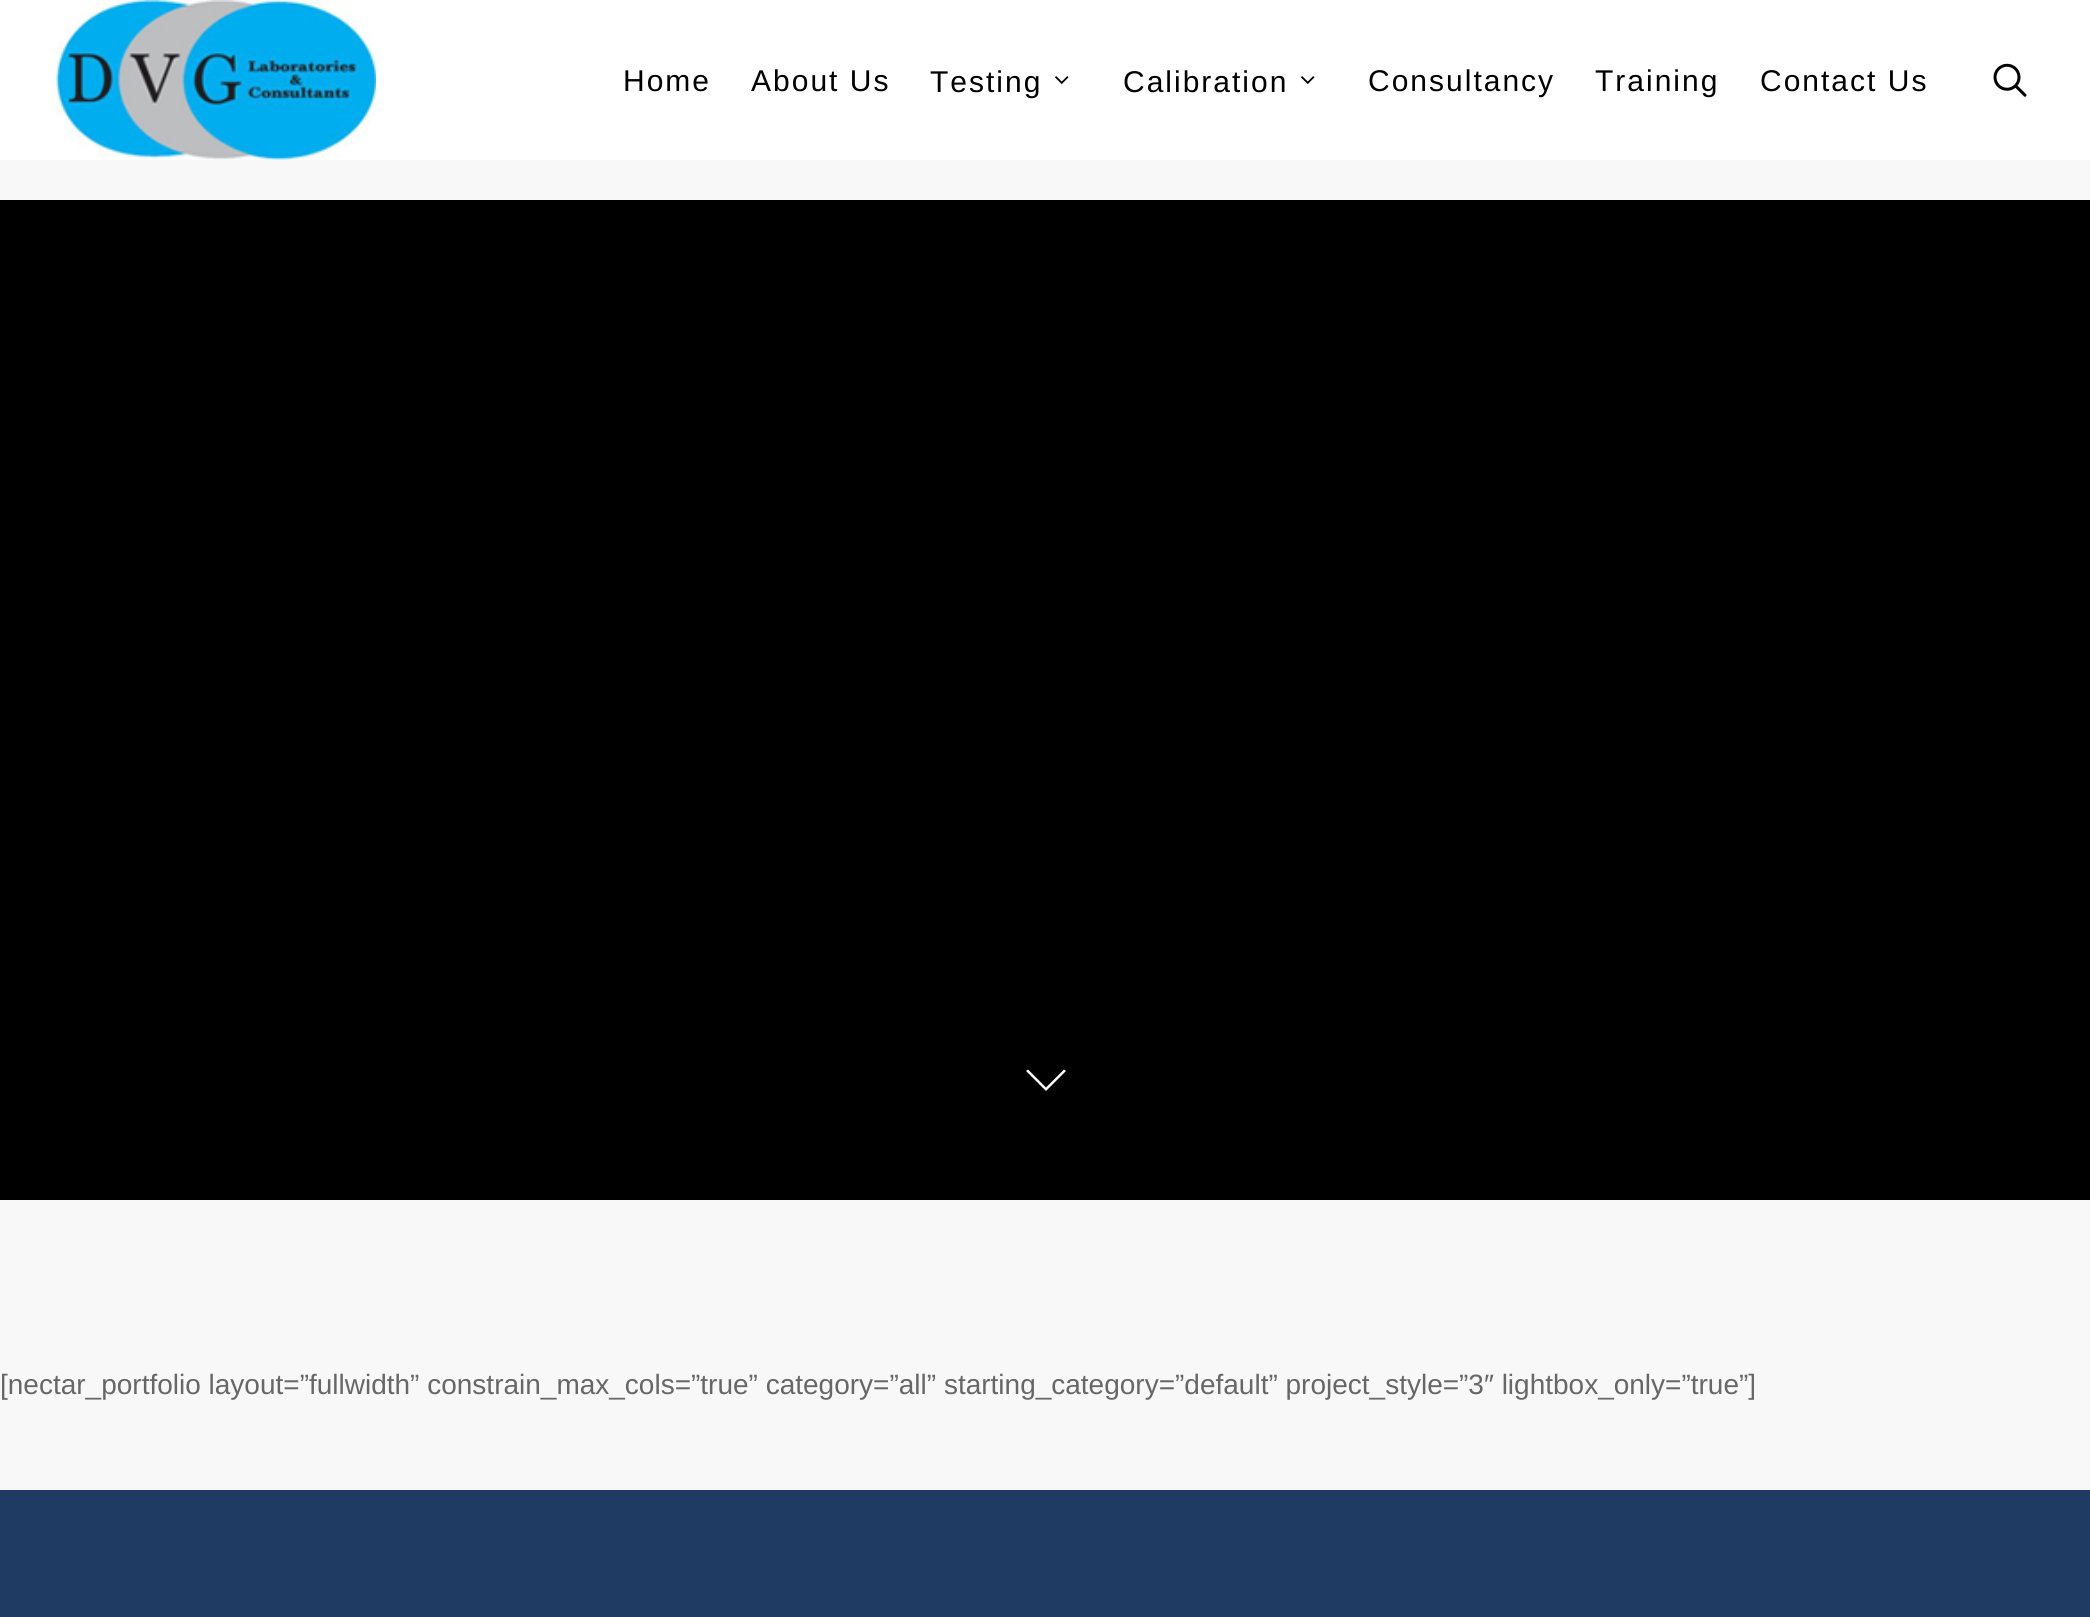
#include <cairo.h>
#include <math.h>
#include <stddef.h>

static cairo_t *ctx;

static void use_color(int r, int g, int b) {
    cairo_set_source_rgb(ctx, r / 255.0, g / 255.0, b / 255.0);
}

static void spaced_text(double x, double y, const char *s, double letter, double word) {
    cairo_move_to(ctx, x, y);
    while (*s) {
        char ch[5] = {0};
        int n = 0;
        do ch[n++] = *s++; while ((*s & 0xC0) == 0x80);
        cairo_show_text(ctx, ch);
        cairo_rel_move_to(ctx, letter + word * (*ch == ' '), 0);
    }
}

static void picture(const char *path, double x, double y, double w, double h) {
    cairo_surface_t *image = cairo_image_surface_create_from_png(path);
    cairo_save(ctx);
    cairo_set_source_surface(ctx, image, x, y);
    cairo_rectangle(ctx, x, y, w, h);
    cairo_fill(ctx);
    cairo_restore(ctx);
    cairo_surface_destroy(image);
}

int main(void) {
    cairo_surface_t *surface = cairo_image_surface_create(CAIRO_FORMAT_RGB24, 2090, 1617);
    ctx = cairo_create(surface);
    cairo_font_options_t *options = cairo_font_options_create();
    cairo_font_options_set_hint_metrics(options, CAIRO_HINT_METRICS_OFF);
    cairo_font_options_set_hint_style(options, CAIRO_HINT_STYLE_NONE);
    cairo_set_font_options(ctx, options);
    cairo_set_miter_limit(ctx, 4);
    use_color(248, 248, 248);
    cairo_paint(ctx);
    use_color(255, 255, 255);
    cairo_rectangle(ctx, 0, 0, 2090, 160);
    cairo_fill(ctx);
    picture("img1.png", 56, 0, 320, 160);
    cairo_select_font_face(ctx, "Liberation Sans", CAIRO_FONT_SLANT_NORMAL, CAIRO_FONT_WEIGHT_NORMAL);
    cairo_set_font_size(ctx, 30);
    use_color(0, 0, 0);
    spaced_text(623, 91, "Home", 2, 0);
    spaced_text(751, 91, "About Us", 2, 0);
    spaced_text(930, 92, "Testing", 2, 0);
    picture("img2.png", 1055, 76, 14, 8);
    spaced_text(1123, 92, "Calibration", 2, 0);
    picture("img2.png", 1301, 76, 14, 8);
    spaced_text(1368, 91, "Consultancy", 2, 0);
    spaced_text(1595, 91, "Training", 2, 0);
    spaced_text(1760, 91, "Contact Us", 2, 0);
    picture("img3.png", 1993, 63, 34, 34);
    cairo_rectangle(ctx, 0, 200, 2090, 1000);
    cairo_fill(ctx);
    use_color(255, 255, 255);
    cairo_new_path(ctx);
    cairo_move_to(ctx, 1064, 1069.5);
    cairo_line_to(ctx, 1066, 1071);
    cairo_line_to(ctx, 1046, 1091);
    cairo_line_to(ctx, 1026, 1071);
    cairo_line_to(ctx, 1028, 1069.5);
    cairo_line_to(ctx, 1046, 1087.5);
    cairo_close_path(ctx);
    cairo_fill(ctx);
    cairo_set_font_size(ctx, 28);
    use_color(103, 103, 103);
    cairo_move_to(ctx, 0, 1394);
    cairo_show_text(ctx, "[nectar_portfolio layout=”fullwidth” constrain_max_cols=”true” category=”all” starting_category=”default” project_style=”3″ lightbox_only=”true”]");
    use_color(31, 59, 100);
    cairo_rectangle(ctx, 0, 1490, 2090, 127);
    cairo_fill(ctx);
    cairo_surface_write_to_png(surface, "result.png");
    cairo_font_options_destroy(options);
    cairo_destroy(ctx);
    cairo_surface_destroy(surface);
    return 0;
}
